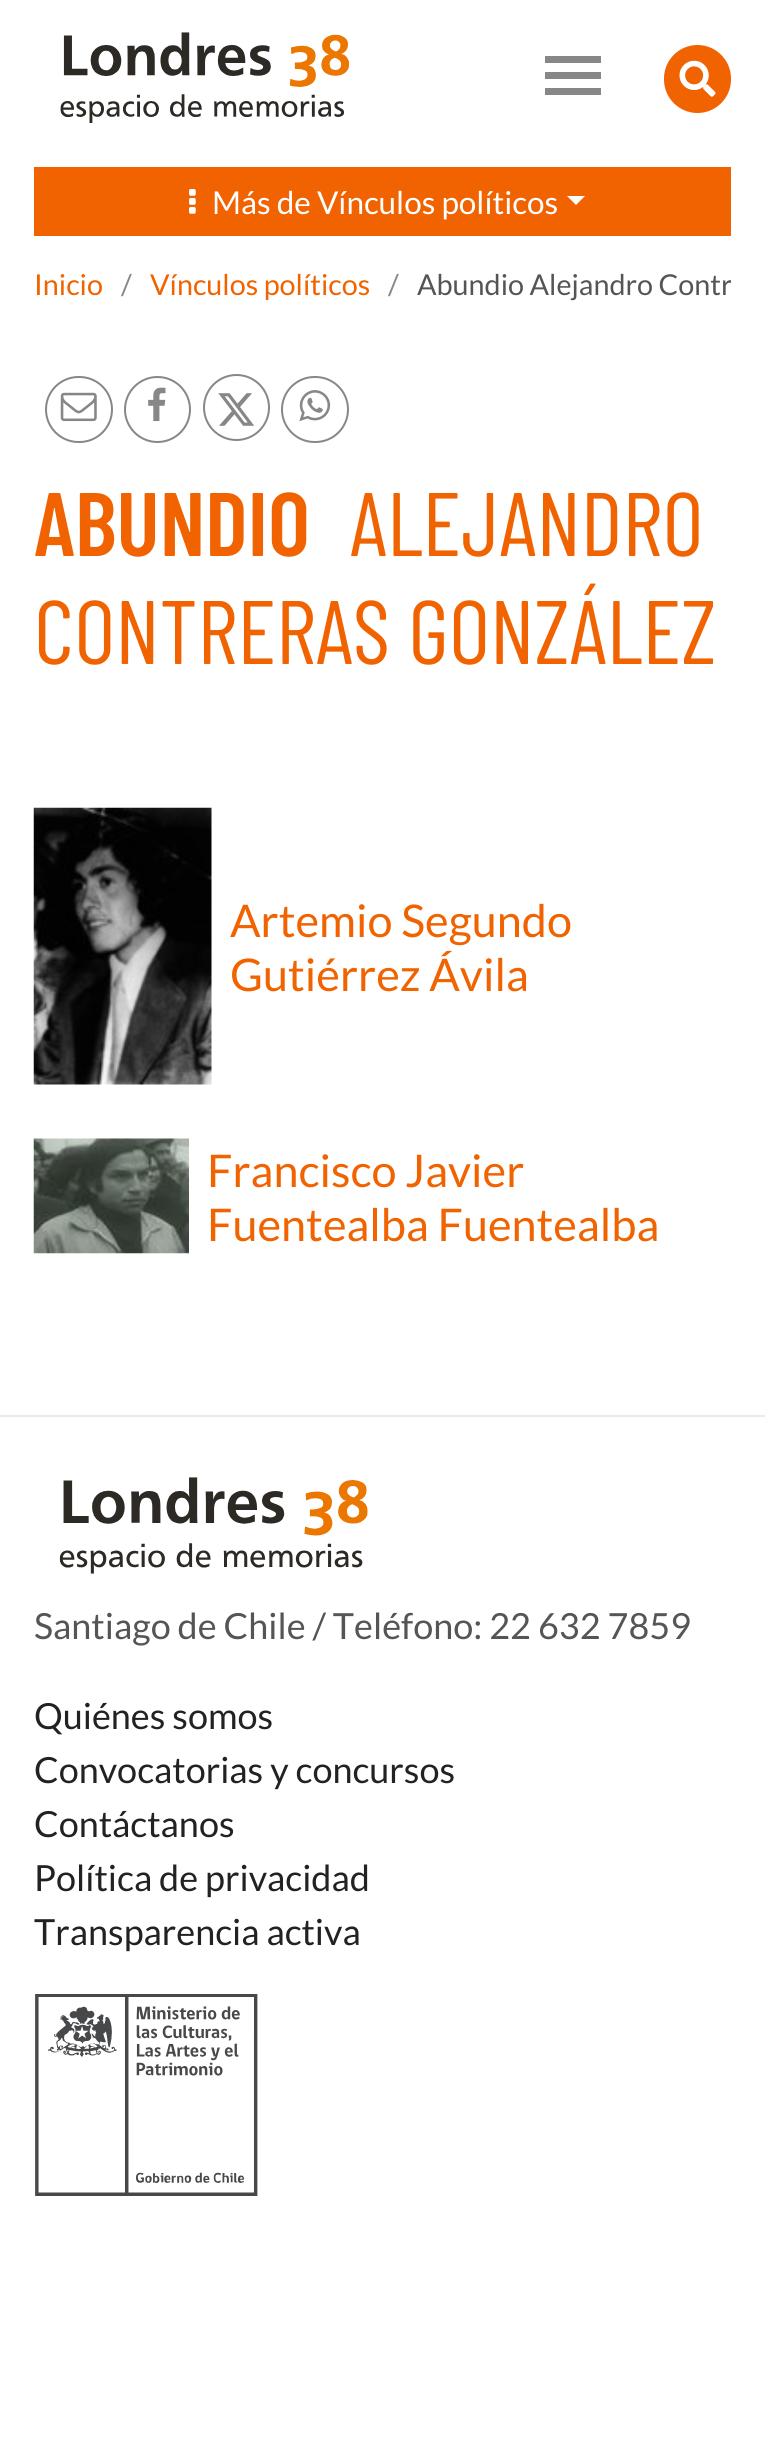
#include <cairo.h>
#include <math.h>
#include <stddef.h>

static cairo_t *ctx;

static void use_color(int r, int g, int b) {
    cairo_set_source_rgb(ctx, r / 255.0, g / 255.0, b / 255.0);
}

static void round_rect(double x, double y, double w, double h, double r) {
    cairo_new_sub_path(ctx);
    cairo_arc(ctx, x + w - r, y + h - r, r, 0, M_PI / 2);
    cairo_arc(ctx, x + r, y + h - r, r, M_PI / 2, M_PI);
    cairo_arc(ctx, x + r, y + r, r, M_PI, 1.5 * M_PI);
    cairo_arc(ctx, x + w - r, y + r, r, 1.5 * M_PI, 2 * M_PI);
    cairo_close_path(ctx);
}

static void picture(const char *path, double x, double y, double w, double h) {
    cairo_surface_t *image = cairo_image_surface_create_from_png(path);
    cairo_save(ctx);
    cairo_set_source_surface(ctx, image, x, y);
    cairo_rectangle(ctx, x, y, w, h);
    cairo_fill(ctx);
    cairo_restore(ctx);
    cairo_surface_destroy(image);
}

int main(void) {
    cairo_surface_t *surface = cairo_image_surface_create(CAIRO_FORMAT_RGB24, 765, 2445);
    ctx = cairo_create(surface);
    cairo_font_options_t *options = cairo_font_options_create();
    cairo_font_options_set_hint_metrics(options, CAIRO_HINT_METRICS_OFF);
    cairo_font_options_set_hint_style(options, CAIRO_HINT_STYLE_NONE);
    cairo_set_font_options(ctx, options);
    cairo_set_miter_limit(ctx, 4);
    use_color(255, 255, 255);
    cairo_paint(ctx);
    picture("img1.png", 60, 32, 289, 91);
    use_color(135, 135, 135);
    cairo_rectangle(ctx, 545, 56, 56, 7);
    cairo_fill(ctx);
    cairo_rectangle(ctx, 545, 72, 56, 7);
    cairo_fill(ctx);
    cairo_rectangle(ctx, 545, 88, 56, 7);
    cairo_fill(ctx);
    use_color(240, 99, 0);
    round_rect(665, 46, 65, 66, 32.5);
    cairo_fill_preserve(ctx);
    cairo_stroke(ctx);
    picture("img2.png", 679, 60, 37, 37);
    cairo_rectangle(ctx, 34, 167, 697, 69);
    cairo_fill(ctx);
    picture("img3.png", 189, 189, 7, 25);
    cairo_select_font_face(ctx, "Lato", CAIRO_FONT_SLANT_NORMAL, CAIRO_FONT_WEIGHT_NORMAL);
    cairo_set_font_size(ctx, 31.5);
    use_color(255, 255, 255);
    cairo_move_to(ctx, 212, 214);
    cairo_show_text(ctx, "Más de Vínculos políticos");
    cairo_new_path(ctx);
    cairo_move_to(ctx, 567, 196);
    cairo_line_to(ctx, 585, 196);
    cairo_line_to(ctx, 576, 205);
    cairo_close_path(ctx);
    cairo_fill(ctx);
    cairo_set_font_size(ctx, 28.75);
    use_color(240, 99, 0);
    cairo_move_to(ctx, 34, 295);
    cairo_show_text(ctx, "Inicio");
    use_color(135, 135, 135);
    cairo_move_to(ctx, 121, 295);
    cairo_show_text(ctx, "/");
    use_color(240, 99, 0);
    cairo_move_to(ctx, 150, 295);
    cairo_show_text(ctx, "Vínculos políticos");
    use_color(135, 135, 135);
    cairo_move_to(ctx, 388, 295);
    cairo_show_text(ctx, "/");
    cairo_save(ctx);
    round_rect(34, 236, 697, 97, 9);
    cairo_clip(ctx);
    use_color(85, 85, 85);
    cairo_move_to(ctx, 417, 295);
    cairo_show_text(ctx, "Abundio Alejandro Contr");
    cairo_restore(ctx);
    round_rect(46, 377, 66, 65, 32.5);
    cairo_stroke(ctx);
    picture("img4.png", 60, 392, 37, 30);
    cairo_arc(ctx, 157.5, 409.5, 32.5, 0, 2 * M_PI);
    cairo_stroke(ctx);
    picture("img5.png", 148, 387, 18, 35);
    cairo_arc(ctx, 236.5, 407.5, 32.5, 0, 2 * M_PI);
    cairo_stroke(ctx);
    picture("img6.png", 218, 393, 36, 33);
    round_rect(282, 377, 66, 65, 32.5);
    cairo_stroke(ctx);
    picture("img7.png", 299, 390, 32, 32);
    cairo_select_font_face(ctx, "Barlow Condensed SemiBold", CAIRO_FONT_SLANT_NORMAL, CAIRO_FONT_WEIGHT_NORMAL);
    cairo_set_font_size(ctx, 90);
    use_color(240, 99, 0);
    cairo_move_to(ctx, 34, 556);
    cairo_show_text(ctx, "ABUNDIO");
    cairo_select_font_face(ctx, "Barlow Condensed", CAIRO_FONT_SLANT_NORMAL, CAIRO_FONT_WEIGHT_NORMAL);
    cairo_move_to(ctx, 350, 556);
    cairo_show_text(ctx, "ALEJANDRO");
    cairo_move_to(ctx, 34, 664);
    cairo_show_text(ctx, "CONTRERAS GONZÁLEZ");
    picture("img8.png", 33, 807, 179, 278);
    cairo_select_font_face(ctx, "Lato", CAIRO_FONT_SLANT_NORMAL, CAIRO_FONT_WEIGHT_NORMAL);
    cairo_set_font_size(ctx, 45);
    cairo_move_to(ctx, 230, 937);
    cairo_show_text(ctx, "Artemio Segundo");
    cairo_move_to(ctx, 230, 991);
    cairo_show_text(ctx, "Gutiérrez Ávila");
    picture("img9.png", 33, 1138, 156, 116);
    cairo_move_to(ctx, 207, 1187);
    cairo_show_text(ctx, "Francisco Javier");
    cairo_move_to(ctx, 207, 1241);
    cairo_show_text(ctx, "Fuentealba Fuentealba");
    use_color(234, 234, 234);
    cairo_rectangle(ctx, 0, 1415, 765, 2);
    cairo_fill(ctx);
    picture("img10.png", 59, 1477, 309, 97);
    cairo_set_font_size(ctx, 36);
    use_color(85, 85, 85);
    cairo_move_to(ctx, 34, 1639);
    cairo_show_text(ctx, "Santiago de Chile / Teléfono: 22 632 7859");
    use_color(34, 34, 34);
    cairo_move_to(ctx, 34, 1729);
    cairo_show_text(ctx, "Quiénes somos");
    cairo_move_to(ctx, 34, 1783);
    cairo_show_text(ctx, "Convocatorias y concursos");
    cairo_move_to(ctx, 34, 1837);
    cairo_show_text(ctx, "Contáctanos");
    cairo_move_to(ctx, 34, 1891);
    cairo_show_text(ctx, "Política de privacidad");
    cairo_move_to(ctx, 34, 1945);
    cairo_show_text(ctx, "Transparencia activa");
    picture("img11.png", 35, 1994, 223, 202);
    cairo_surface_write_to_png(surface, "result.png");
    cairo_font_options_destroy(options);
    cairo_destroy(ctx);
    cairo_surface_destroy(surface);
    return 0;
}
